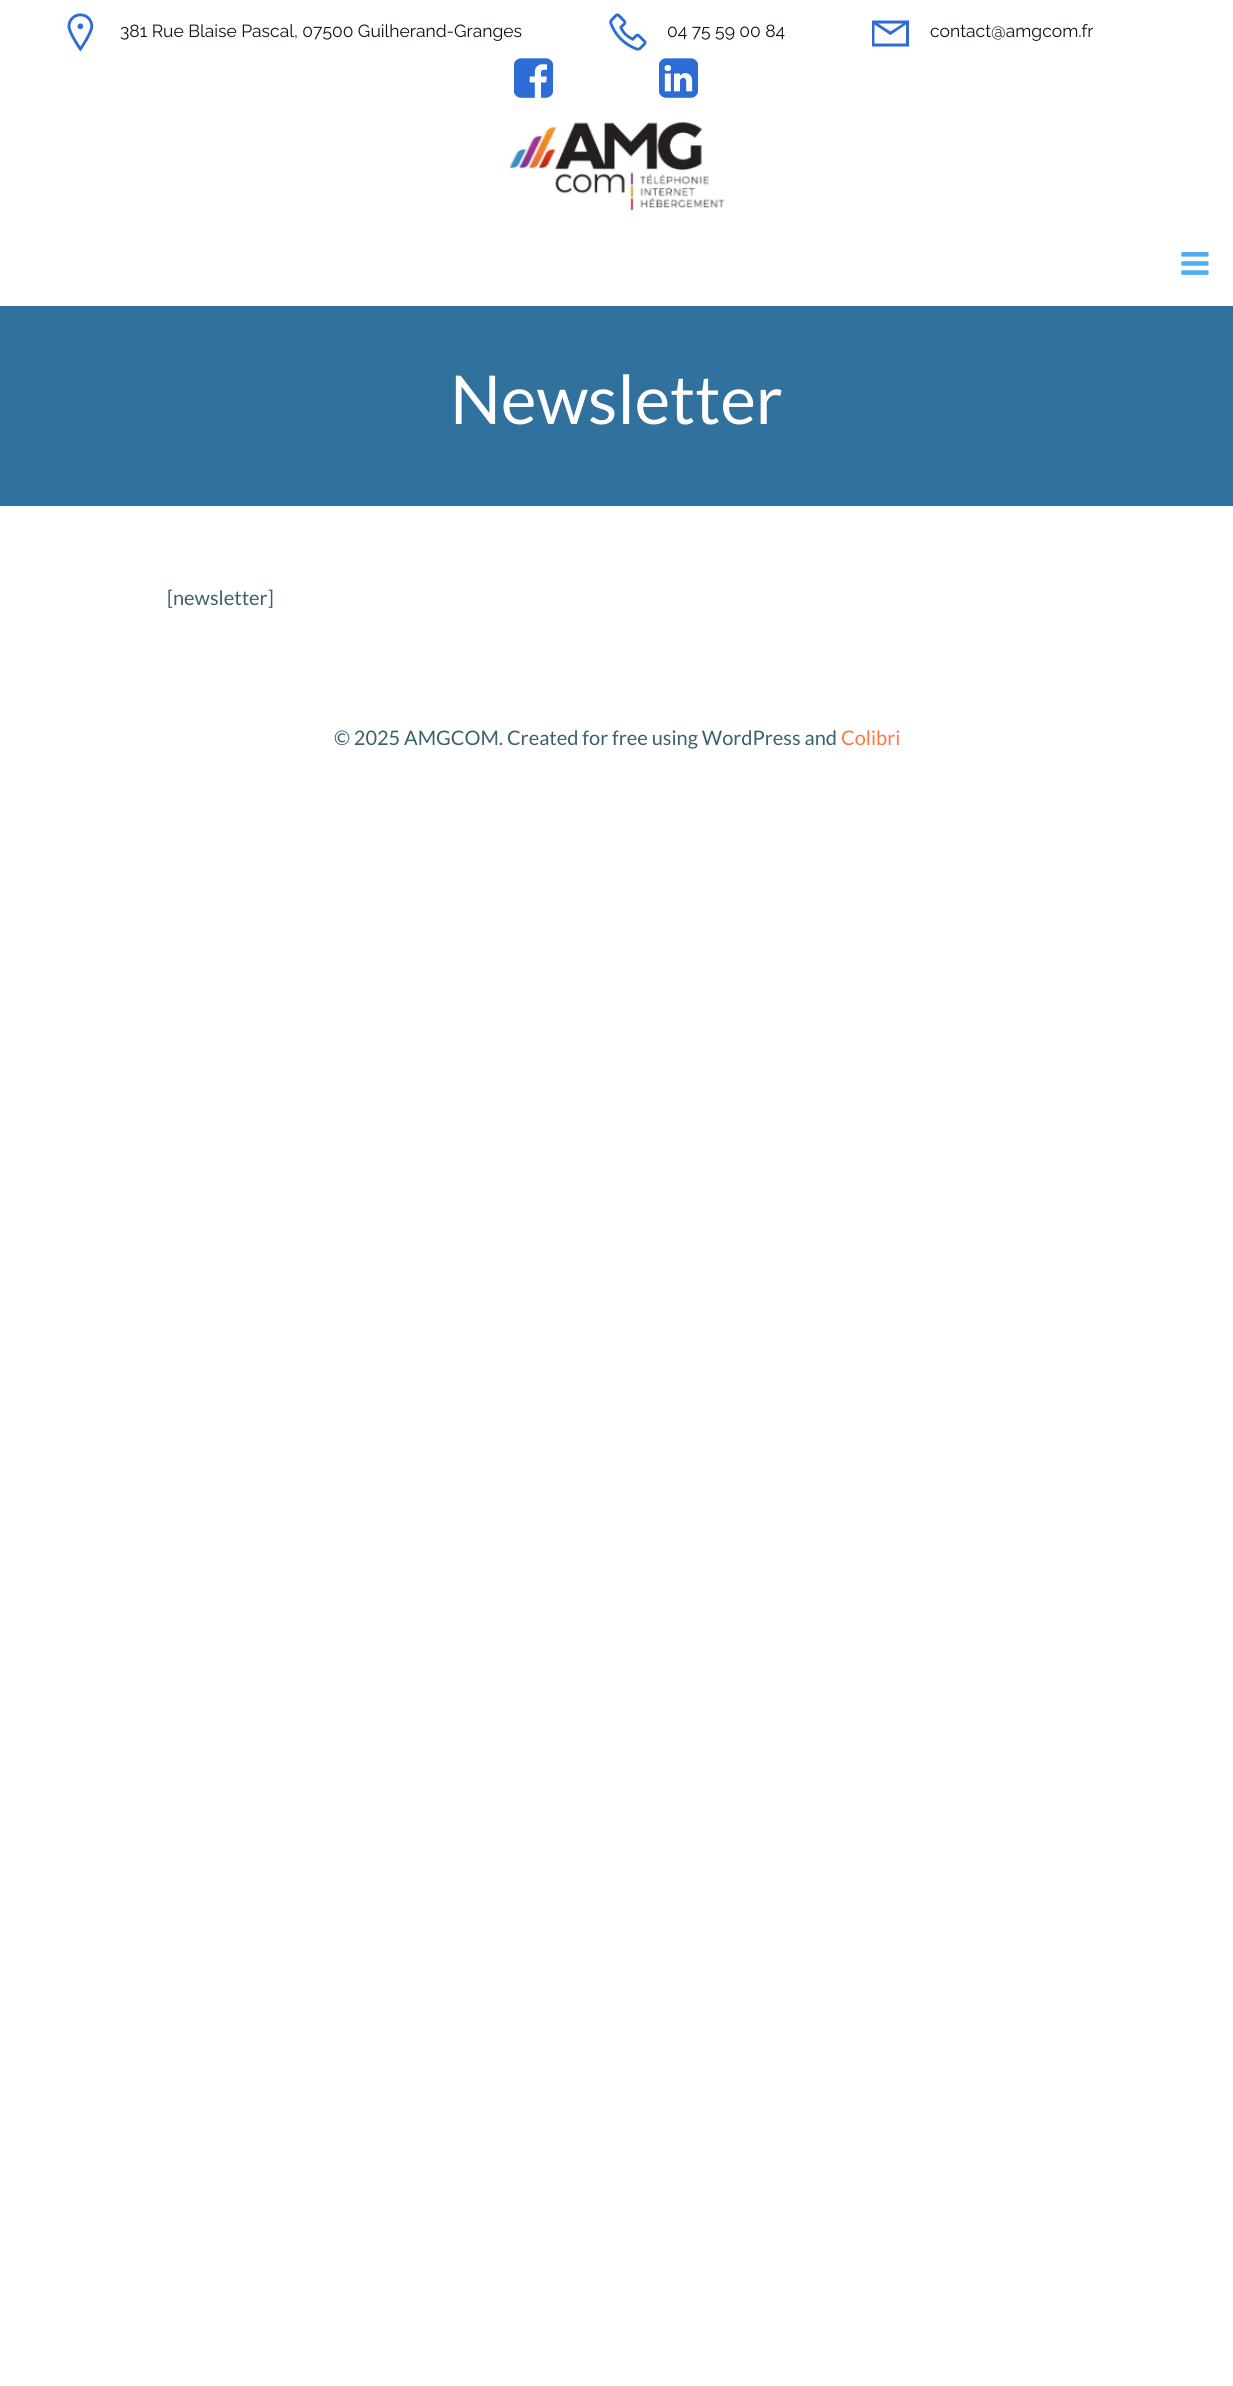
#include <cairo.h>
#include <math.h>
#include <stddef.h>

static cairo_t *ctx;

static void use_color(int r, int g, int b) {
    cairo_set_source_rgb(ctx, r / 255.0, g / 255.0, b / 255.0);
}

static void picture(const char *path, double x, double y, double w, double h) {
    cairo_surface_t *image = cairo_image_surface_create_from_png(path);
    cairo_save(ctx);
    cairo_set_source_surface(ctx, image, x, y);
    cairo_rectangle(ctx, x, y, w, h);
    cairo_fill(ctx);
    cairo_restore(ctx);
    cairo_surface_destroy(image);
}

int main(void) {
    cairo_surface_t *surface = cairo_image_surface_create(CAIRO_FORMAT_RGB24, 1233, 2386);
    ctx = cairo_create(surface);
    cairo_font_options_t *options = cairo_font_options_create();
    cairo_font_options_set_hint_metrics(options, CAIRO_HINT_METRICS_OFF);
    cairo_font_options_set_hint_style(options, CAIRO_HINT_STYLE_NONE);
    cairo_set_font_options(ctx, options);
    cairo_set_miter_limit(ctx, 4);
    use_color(255, 255, 255);
    cairo_paint(ctx);
    picture("img1.png", 67, 13, 27, 39);
    cairo_select_font_face(ctx, "Raleway", CAIRO_FONT_SLANT_NORMAL, CAIRO_FONT_WEIGHT_NORMAL);
    cairo_set_font_size(ctx, 17.5);
    use_color(12, 20, 22);
    cairo_move_to(ctx, 120, 37);
    cairo_show_text(ctx, "381 Rue Blaise Pascal, 07500 Guilherand-Granges");
    picture("img2.png", 609, 13, 38, 38);
    cairo_move_to(ctx, 667, 37);
    cairo_show_text(ctx, "04 75 59 00 84");
    use_color(45, 107, 214);
    cairo_new_path(ctx);
    cairo_move_to(ctx, 872, 20.5);
    cairo_line_to(ctx, 909, 20.5);
    cairo_line_to(ctx, 909, 46.5);
    cairo_line_to(ctx, 872, 46.5);
    cairo_close_path(ctx);
    cairo_move_to(ctx, 878, 23.5);
    cairo_line_to(ctx, 890.5, 31.5);
    cairo_line_to(ctx, 903, 23.5);
    cairo_close_path(ctx);
    cairo_move_to(ctx, 874.5, 24.5);
    cairo_line_to(ctx, 874.5, 43.5);
    cairo_line_to(ctx, 906, 43.5);
    cairo_line_to(ctx, 906, 24.5);
    cairo_line_to(ctx, 890.5, 35);
    cairo_line_to(ctx, 889.5, 34.5);
    cairo_close_path(ctx);
    cairo_fill(ctx);
    use_color(12, 20, 22);
    cairo_move_to(ctx, 930, 37);
    cairo_show_text(ctx, "contact@amgcom.fr");
    picture("img3.png", 514, 58, 39, 40);
    picture("img4.png", 659, 58, 39, 40);
    picture("img5.png", 509, 122, 216, 88);
    picture("img6.png", 1181, 252, 28, 23);
    use_color(49, 113, 158);
    cairo_rectangle(ctx, 0, 306, 1233, 200);
    cairo_fill(ctx);
    cairo_select_font_face(ctx, "Lato", CAIRO_FONT_SLANT_NORMAL, CAIRO_FONT_WEIGHT_NORMAL);
    cairo_set_font_size(ctx, 67.5);
    use_color(255, 255, 255);
    cairo_move_to(ctx, 450, 424);
    cairo_show_text(ctx, "Newsletter");
    cairo_set_font_size(ctx, 20);
    use_color(58, 97, 107);
    cairo_move_to(ctx, 167, 605);
    cairo_show_text(ctx, "[newsletter]");
    cairo_move_to(ctx, 334, 745);
    cairo_show_text(ctx, "© 2025 AMGCOM. Created for free using WordPress and");
    use_color(255, 118, 67);
    cairo_move_to(ctx, 841, 745);
    cairo_show_text(ctx, "Colibri");
    cairo_surface_write_to_png(surface, "result.png");
    cairo_font_options_destroy(options);
    cairo_destroy(ctx);
    cairo_surface_destroy(surface);
    return 0;
}
